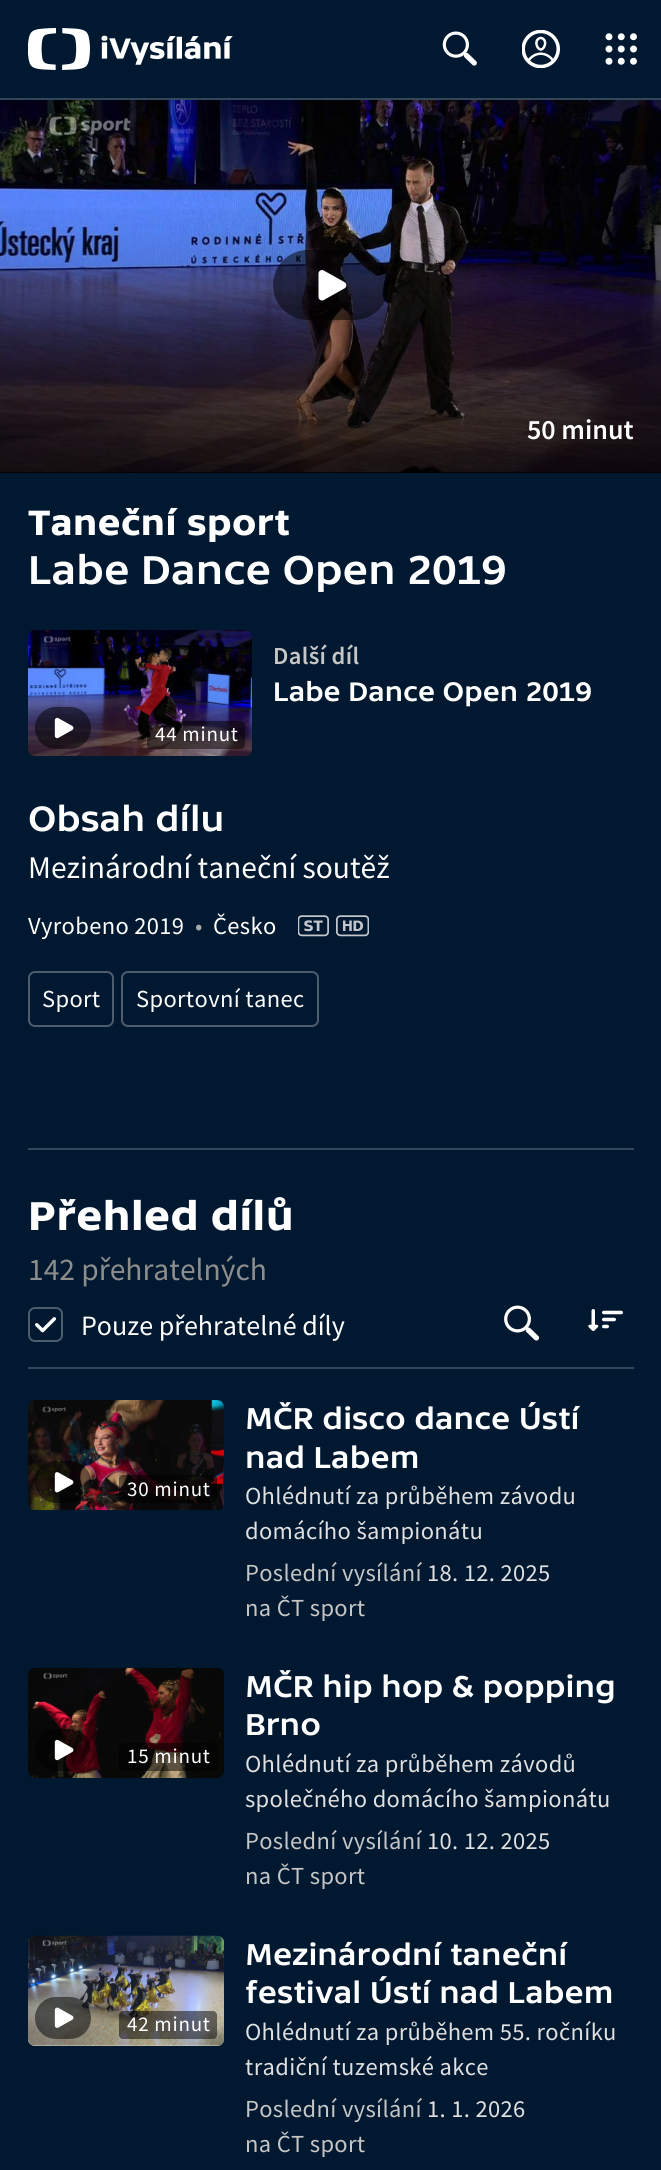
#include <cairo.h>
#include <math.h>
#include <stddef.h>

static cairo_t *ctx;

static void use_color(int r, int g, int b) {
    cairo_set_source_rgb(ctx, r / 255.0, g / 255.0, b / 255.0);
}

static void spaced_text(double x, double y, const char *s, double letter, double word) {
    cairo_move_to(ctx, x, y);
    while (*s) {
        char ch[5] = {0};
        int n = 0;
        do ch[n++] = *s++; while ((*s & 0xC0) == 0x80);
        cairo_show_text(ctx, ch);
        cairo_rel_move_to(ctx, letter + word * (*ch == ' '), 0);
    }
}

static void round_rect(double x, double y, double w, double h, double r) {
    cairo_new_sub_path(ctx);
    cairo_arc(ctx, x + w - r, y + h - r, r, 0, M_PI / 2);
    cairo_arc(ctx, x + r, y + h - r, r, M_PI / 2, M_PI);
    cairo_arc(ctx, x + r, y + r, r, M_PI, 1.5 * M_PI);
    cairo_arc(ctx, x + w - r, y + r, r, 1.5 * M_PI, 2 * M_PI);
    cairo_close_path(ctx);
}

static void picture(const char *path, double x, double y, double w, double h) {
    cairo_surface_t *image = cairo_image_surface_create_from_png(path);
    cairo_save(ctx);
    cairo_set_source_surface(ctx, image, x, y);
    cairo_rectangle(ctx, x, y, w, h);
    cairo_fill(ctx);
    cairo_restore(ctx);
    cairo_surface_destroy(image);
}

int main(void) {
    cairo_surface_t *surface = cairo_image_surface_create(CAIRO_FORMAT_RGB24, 661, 2170);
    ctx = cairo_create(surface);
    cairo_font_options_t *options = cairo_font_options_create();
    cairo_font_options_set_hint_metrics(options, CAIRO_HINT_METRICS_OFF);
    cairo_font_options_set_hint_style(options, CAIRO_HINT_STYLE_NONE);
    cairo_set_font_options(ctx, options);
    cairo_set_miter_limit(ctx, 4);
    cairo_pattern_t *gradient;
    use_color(0, 24, 48);
    cairo_paint(ctx);
    use_color(0, 0, 0);
    cairo_rectangle(ctx, 0, 472, 661, 1);
    cairo_fill(ctx);
    picture("img5.png", 0, 99, 661, 374);
    cairo_set_source_rgba(ctx, 1, 1, 1, 0.2);
    cairo_rectangle(ctx, 0, 98, 661, 2);
    cairo_fill(ctx);
    picture("img1.png", 28, 28, 205, 42);
    picture("img2.png", 442, 31, 35, 35);
    picture("img3.png", 522, 30, 38, 38);
    picture("img4.png", 605, 33, 32, 32);
    gradient = cairo_pattern_create_linear(331, 192, 331, 473);
    cairo_pattern_add_color_stop_rgba(gradient, 0, 0, 0, 0, 0);
    cairo_pattern_add_color_stop_rgba(gradient, 0.14, 0, 0, 0, 0.05);
    cairo_pattern_add_color_stop_rgba(gradient, 0.33, 0, 0, 0, 0.15);
    cairo_pattern_add_color_stop_rgba(gradient, 0.62, 0, 0, 0, 0.35);
    cairo_pattern_add_color_stop_rgba(gradient, 1, 0, 0, 0, 0.7);
    cairo_set_source(ctx, gradient);
    cairo_pattern_destroy(gradient);
    cairo_rectangle(ctx, 0, 209, 661, 264);
    cairo_fill(ctx);
    gradient = cairo_pattern_create_linear(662, 286, 452, 286);
    cairo_pattern_add_color_stop_rgba(gradient, 0, 0, 0, 0, 0.24);
    cairo_pattern_add_color_stop_rgba(gradient, 0.38, 0, 0, 0, 0.13);
    cairo_pattern_add_color_stop_rgba(gradient, 0.67, 0, 0, 0, 0.06);
    cairo_pattern_add_color_stop_rgba(gradient, 0.86, 0, 0, 0, 0.03);
    cairo_pattern_add_color_stop_rgba(gradient, 1, 0, 0, 0, 0);
    cairo_set_source(ctx, gradient);
    cairo_pattern_destroy(gradient);
    cairo_rectangle(ctx, 475, 100, 186, 372);
    cairo_fill(ctx);
    cairo_set_source_rgba(ctx, 0, 0, 0, 0.5);
    round_rect(273, 250, 116, 70, 35);
    cairo_fill(ctx);
    picture("img6.png", 318, 270, 29, 31);
    cairo_select_font_face(ctx, "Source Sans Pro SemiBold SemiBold", CAIRO_FONT_SLANT_NORMAL, CAIRO_FONT_WEIGHT_NORMAL);
    cairo_set_font_size(ctx, 28);
    use_color(255, 255, 255);
    cairo_move_to(ctx, 527, 439);
    cairo_show_text(ctx, "50 minut");
    cairo_select_font_face(ctx, "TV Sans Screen", CAIRO_FONT_SLANT_NORMAL, CAIRO_FONT_WEIGHT_BOLD);
    cairo_set_font_size(ctx, 36.75);
    cairo_move_to(ctx, 28, 535);
    cairo_show_text(ctx, "Taneční sport");
    cairo_select_font_face(ctx, "TV Sans Screen", CAIRO_FONT_SLANT_NORMAL, CAIRO_FONT_WEIGHT_NORMAL);
    cairo_set_font_size(ctx, 42);
    cairo_move_to(ctx, 28, 584);
    cairo_show_text(ctx, "Labe Dance Open 2019");
    cairo_select_font_face(ctx, "Source Sans Pro SemiBold SemiBold", CAIRO_FONT_SLANT_NORMAL, CAIRO_FONT_WEIGHT_NORMAL);
    cairo_set_font_size(ctx, 24.5);
    use_color(198, 198, 198);
    spaced_text(273, 664, "Další díl", 0.35, 0);
    cairo_select_font_face(ctx, "TV Sans Screen", CAIRO_FONT_SLANT_NORMAL, CAIRO_FONT_WEIGHT_NORMAL);
    cairo_set_font_size(ctx, 28);
    use_color(255, 255, 255);
    cairo_move_to(ctx, 273, 701);
    cairo_show_text(ctx, "Labe Dance Open 2019");
    picture("img7.png", 28, 630, 224, 126);
    cairo_set_source_rgba(ctx, 0, 0, 0, 0.5);
    round_rect(35, 707, 56, 42, 21);
    cairo_fill(ctx);
    picture("img8.png", 54, 717, 20, 22);
    round_rect(147, 721, 98, 28, 4);
    cairo_fill(ctx);
    cairo_select_font_face(ctx, "Source Sans Pro", CAIRO_FONT_SLANT_NORMAL, CAIRO_FONT_WEIGHT_NORMAL);
    cairo_set_font_size(ctx, 21);
    use_color(255, 255, 255);
    spaced_text(155, 741, "44 minut", 0.75, 0);
    cairo_select_font_face(ctx, "TV Sans Screen", CAIRO_FONT_SLANT_NORMAL, CAIRO_FONT_WEIGHT_NORMAL);
    cairo_set_font_size(ctx, 36.75);
    cairo_move_to(ctx, 28, 831);
    cairo_show_text(ctx, "Obsah dílu");
    cairo_select_font_face(ctx, "Source Sans Pro", CAIRO_FONT_SLANT_NORMAL, CAIRO_FONT_WEIGHT_NORMAL);
    cairo_set_font_size(ctx, 31.5);
    cairo_move_to(ctx, 28, 878);
    cairo_show_text(ctx, "Mezinárodní taneční soutěž");
    cairo_set_font_size(ctx, 24.5);
    spaced_text(28, 934, "Vyrobeno 2019", 0.35, 0);
    use_color(168, 168, 168);
    spaced_text(195, 934, "•", 0.35, 0);
    use_color(255, 255, 255);
    spaced_text(213, 934, "Česko", 0.35, 0);
    picture("img9.png", 298, 915, 31, 22);
    picture("img10.png", 336, 915, 33, 22);
    round_rect(29, 972, 84, 54, 6);
    use_color(77, 93, 110);
    cairo_stroke(ctx);
    use_color(255, 255, 255);
    spaced_text(42, 1007, "Sport", 0.35, 0);
    round_rect(122, 972, 196, 54, 6);
    use_color(77, 93, 110);
    cairo_stroke(ctx);
    use_color(255, 255, 255);
    spaced_text(136, 1007, "Sportovní tanec", 0.35, 0);
    use_color(51, 70, 89);
    cairo_rectangle(ctx, 28, 1148, 606, 2);
    cairo_fill(ctx);
    cairo_select_font_face(ctx, "TV Sans Screen", CAIRO_FONT_SLANT_NORMAL, CAIRO_FONT_WEIGHT_BOLD);
    cairo_set_font_size(ctx, 42);
    use_color(255, 255, 255);
    cairo_move_to(ctx, 28, 1230);
    cairo_show_text(ctx, "Přehled dílů");
    cairo_select_font_face(ctx, "Source Sans Pro", CAIRO_FONT_SLANT_NORMAL, CAIRO_FONT_WEIGHT_NORMAL);
    cairo_set_font_size(ctx, 31.5);
    use_color(141, 141, 141);
    cairo_move_to(ctx, 28, 1280);
    cairo_show_text(ctx, "142 přehratelných");
    round_rect(29, 1308, 33, 33, 6);
    use_color(77, 93, 110);
    cairo_stroke(ctx);
    picture("img11.png", 35, 1317, 21, 16);
    cairo_set_font_size(ctx, 28);
    use_color(255, 255, 255);
    cairo_move_to(ctx, 81, 1335);
    cairo_show_text(ctx, "Pouze přehratelné díly");
    picture("img12.png", 504, 1305, 36, 36);
    picture("img13.png", 588, 1309, 35, 22);
    use_color(51, 70, 89);
    cairo_rectangle(ctx, 28, 1367, 606, 2);
    cairo_fill(ctx);
    picture("img14.png", 28, 1400, 196, 111);
    cairo_set_source_rgba(ctx, 0, 0, 0, 0.5);
    round_rect(35, 1461, 56, 42, 21);
    cairo_fill(ctx);
    picture("img15.png", 54, 1472, 20, 21);
    round_rect(119, 1475, 98, 28, 4);
    cairo_fill(ctx);
    cairo_set_font_size(ctx, 21);
    use_color(255, 255, 255);
    spaced_text(127, 1496, "30 minut", 0.75, 0);
    cairo_select_font_face(ctx, "TV Sans Screen", CAIRO_FONT_SLANT_NORMAL, CAIRO_FONT_WEIGHT_NORMAL);
    cairo_set_font_size(ctx, 31.5);
    cairo_move_to(ctx, 245, 1429);
    cairo_show_text(ctx, "MČR disco dance Ústí");
    cairo_move_to(ctx, 245, 1468);
    cairo_show_text(ctx, "nad Labem");
    cairo_select_font_face(ctx, "Source Sans Pro", CAIRO_FONT_SLANT_NORMAL, CAIRO_FONT_WEIGHT_NORMAL);
    cairo_set_font_size(ctx, 24.5);
    use_color(224, 224, 224);
    spaced_text(245, 1504, "Ohlédnutí za průběhem závodu", 0.35, 0);
    spaced_text(245, 1539, "domácího šampionátu", 0.35, 0);
    use_color(198, 198, 198);
    spaced_text(245, 1581, "Poslední vysílání", 0.35, 0);
    use_color(224, 224, 224);
    spaced_text(427, 1581, "18. 12. 2025", 0.35, 0);
    use_color(198, 198, 198);
    spaced_text(245, 1616, "na ČT sport", 0.35, 0);
    picture("img16.png", 28, 1667, 196, 111);
    cairo_set_source_rgba(ctx, 0, 0, 0, 0.5);
    round_rect(35, 1729, 56, 42, 21);
    cairo_fill(ctx);
    picture("img17.png", 54, 1739, 20, 22);
    round_rect(119, 1743, 98, 28, 4);
    cairo_fill(ctx);
    cairo_set_font_size(ctx, 21);
    use_color(255, 255, 255);
    spaced_text(127, 1763, "15 minut", 0.75, 0);
    cairo_select_font_face(ctx, "TV Sans Screen", CAIRO_FONT_SLANT_NORMAL, CAIRO_FONT_WEIGHT_NORMAL);
    cairo_set_font_size(ctx, 31.5);
    cairo_move_to(ctx, 245, 1697);
    cairo_show_text(ctx, "MČR hip hop & popping");
    cairo_move_to(ctx, 245, 1735);
    cairo_show_text(ctx, "Brno");
    cairo_select_font_face(ctx, "Source Sans Pro", CAIRO_FONT_SLANT_NORMAL, CAIRO_FONT_WEIGHT_NORMAL);
    cairo_set_font_size(ctx, 24.5);
    use_color(224, 224, 224);
    spaced_text(245, 1772, "Ohlédnutí za průběhem závodů", 0.35, 0);
    spaced_text(245, 1807, "společného domácího šampionátu", 0.35, 0);
    use_color(198, 198, 198);
    spaced_text(245, 1849, "Poslední vysílání", 0.35, 0);
    use_color(224, 224, 224);
    spaced_text(427, 1849, "10. 12. 2025", 0.35, 0);
    use_color(198, 198, 198);
    spaced_text(245, 1884, "na ČT sport", 0.35, 0);
    use_color(224, 224, 224);
    round_rect(28, 1936, 196, 110, 7);
    cairo_fill(ctx);
    picture("img18.png", 28, 1935, 196, 111);
    cairo_set_source_rgba(ctx, 0, 0, 0, 0.5);
    round_rect(35, 1997, 56, 42, 21);
    cairo_fill(ctx);
    picture("img19.png", 54, 2007, 20, 21);
    round_rect(119, 2011, 98, 28, 4);
    cairo_fill(ctx);
    cairo_set_font_size(ctx, 21);
    use_color(255, 255, 255);
    spaced_text(127, 2031, "42 minut", 0.75, 0);
    cairo_select_font_face(ctx, "TV Sans Screen", CAIRO_FONT_SLANT_NORMAL, CAIRO_FONT_WEIGHT_NORMAL);
    cairo_set_font_size(ctx, 31.5);
    cairo_move_to(ctx, 245, 1965);
    cairo_show_text(ctx, "Mezinárodní taneční");
    cairo_move_to(ctx, 245, 2003);
    cairo_show_text(ctx, "festival Ústí nad Labem");
    cairo_select_font_face(ctx, "Source Sans Pro", CAIRO_FONT_SLANT_NORMAL, CAIRO_FONT_WEIGHT_NORMAL);
    cairo_set_font_size(ctx, 24.5);
    use_color(224, 224, 224);
    spaced_text(245, 2040, "Ohlédnutí za průběhem 55. ročníku", 0.35, 0);
    spaced_text(245, 2075, "tradiční tuzemské akce", 0.35, 0);
    use_color(198, 198, 198);
    spaced_text(245, 2117, "Poslední vysílání", 0.35, 0);
    use_color(224, 224, 224);
    spaced_text(427, 2117, "1. 1. 2026", 0.35, 0);
    use_color(198, 198, 198);
    spaced_text(245, 2152, "na ČT sport", 0.35, 0);
    cairo_surface_write_to_png(surface, "result.png");
    cairo_font_options_destroy(options);
    cairo_destroy(ctx);
    cairo_surface_destroy(surface);
    return 0;
}
